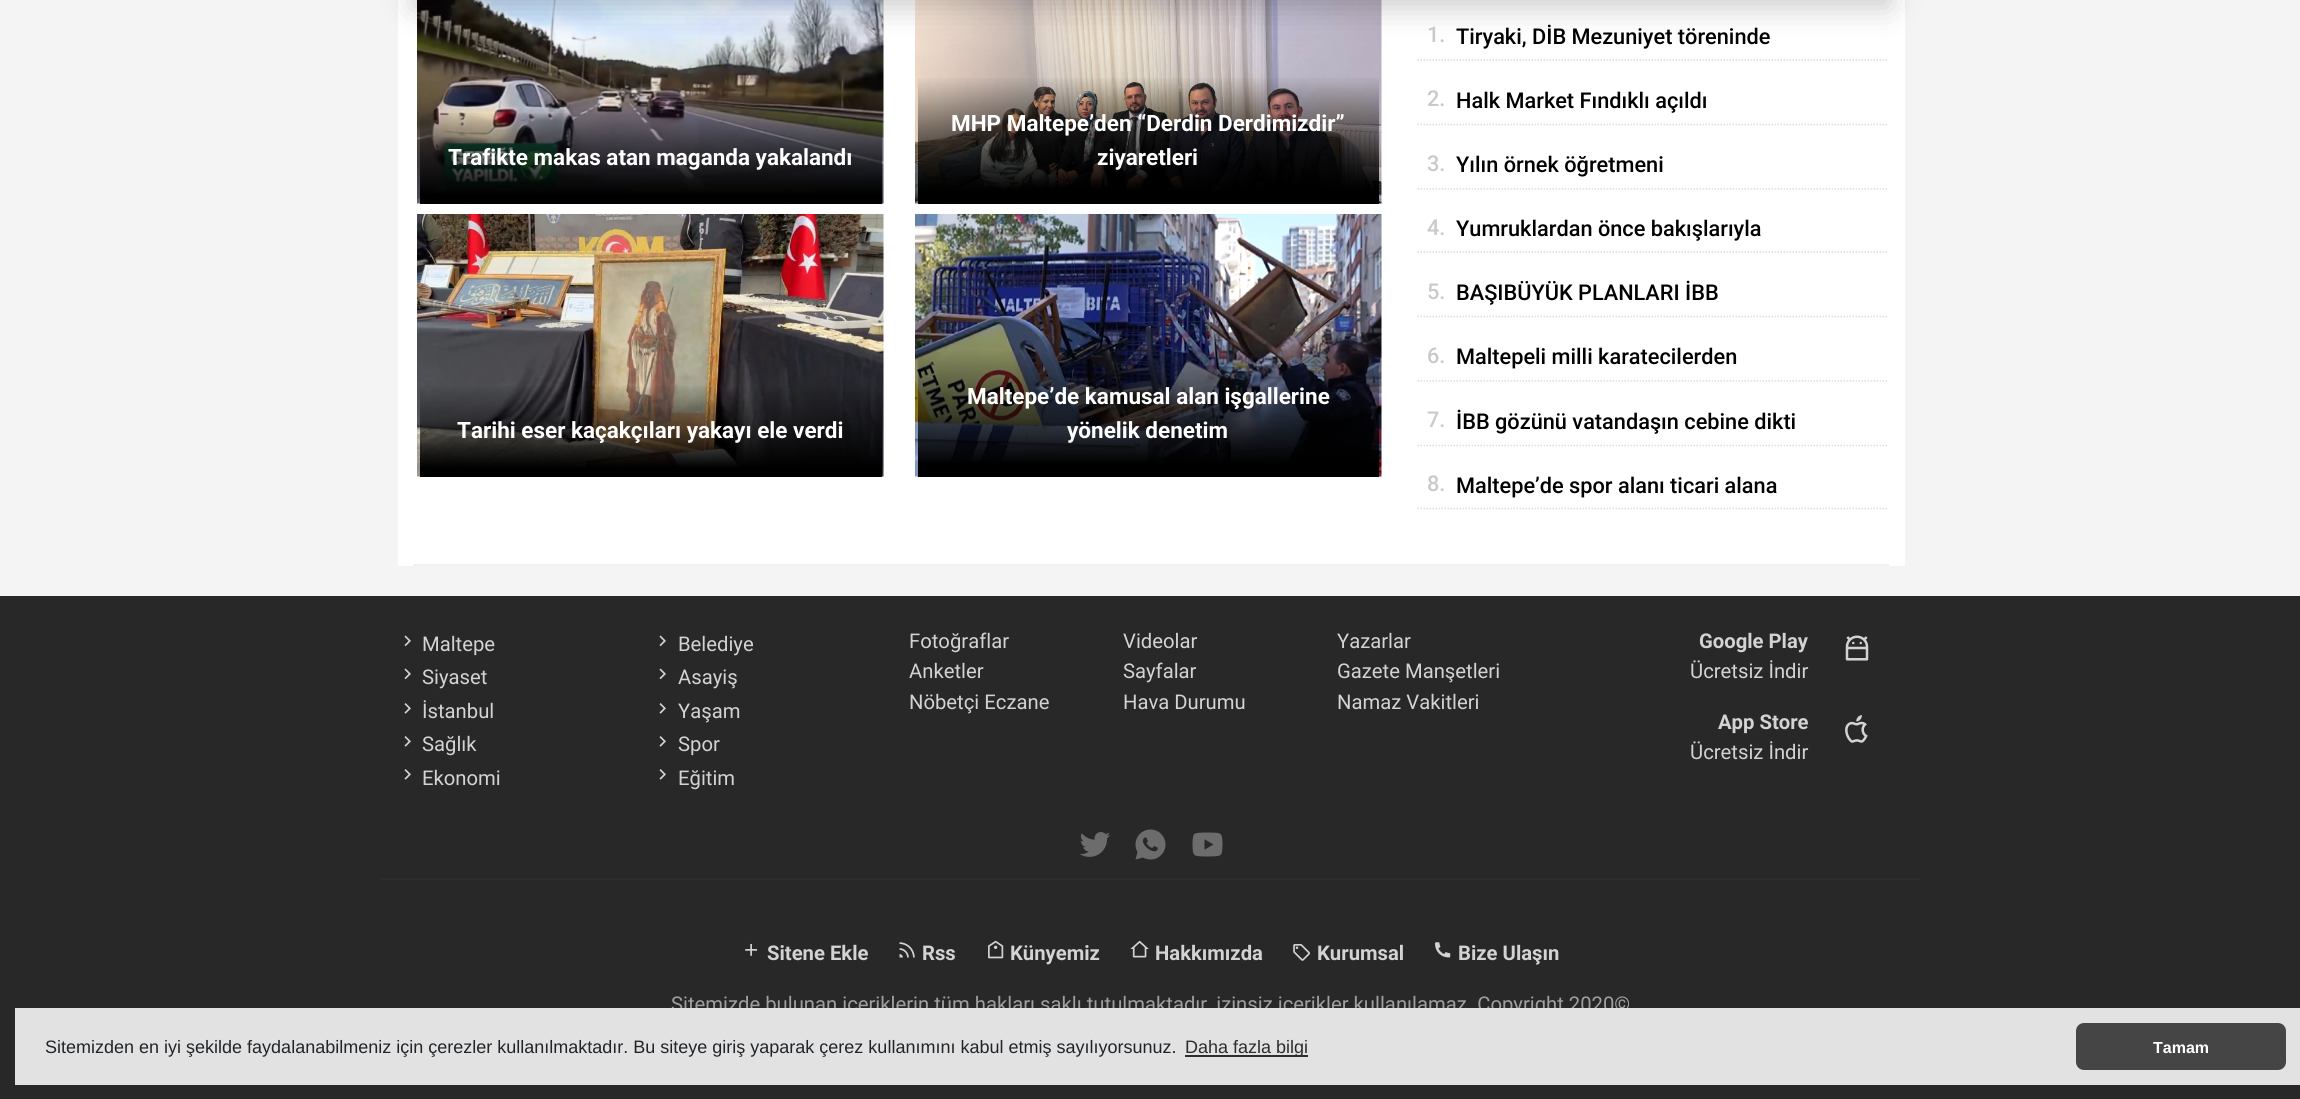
#include <cairo.h>
#include <math.h>
#include <stddef.h>

static cairo_t *ctx;

static void use_color(int r, int g, int b) {
    cairo_set_source_rgb(ctx, r / 255.0, g / 255.0, b / 255.0);
}

static void round_rect(double x, double y, double w, double h, double r) {
    cairo_new_sub_path(ctx);
    cairo_arc(ctx, x + w - r, y + h - r, r, 0, M_PI / 2);
    cairo_arc(ctx, x + r, y + h - r, r, M_PI / 2, M_PI);
    cairo_arc(ctx, x + r, y + r, r, M_PI, 1.5 * M_PI);
    cairo_arc(ctx, x + w - r, y + r, r, 1.5 * M_PI, 2 * M_PI);
    cairo_close_path(ctx);
}

static void shadow(double x, double y, double w, double h, double r, double blur, double alpha) {
    cairo_push_group_with_content(ctx, CAIRO_CONTENT_ALPHA);
    cairo_set_operator(ctx, CAIRO_OPERATOR_SOURCE);
    for (int i = 15; i >= -15 && fmin(w, h) + blur * i / 3 > 0; i -= 2) {
        double e = blur * i / 6;
        cairo_set_source_rgba(ctx, 0, 0, 0, alpha * erfc((i - 1) / 8.5) / 2);
        round_rect(x - e, y - e, w + 2 * e, h + 2 * e, fmax(0, fmin(r + e + blur * .6, fmin(w, h) / 2 + e)));
        cairo_fill(ctx);
    }
    cairo_pattern_t *soft = cairo_pop_group(ctx);
    cairo_mask(ctx, soft);
    cairo_pattern_destroy(soft);
}

static void picture(const char *path, double x, double y, double w, double h) {
    cairo_surface_t *image = cairo_image_surface_create_from_png(path);
    cairo_save(ctx);
    cairo_set_source_surface(ctx, image, x, y);
    cairo_rectangle(ctx, x, y, w, h);
    cairo_fill(ctx);
    cairo_restore(ctx);
    cairo_surface_destroy(image);
}

int main(void) {
    cairo_surface_t *surface = cairo_image_surface_create(CAIRO_FORMAT_RGB24, 2300, 1099);
    ctx = cairo_create(surface);
    cairo_font_options_t *options = cairo_font_options_create();
    cairo_font_options_set_hint_metrics(options, CAIRO_HINT_METRICS_OFF);
    cairo_font_options_set_hint_style(options, CAIRO_HINT_STYLE_NONE);
    cairo_set_font_options(ctx, options);
    cairo_set_miter_limit(ctx, 4);
    cairo_pattern_t *gradient;
    use_color(244, 244, 244);
    cairo_paint(ctx);
    use_color(255, 255, 255);
    cairo_rectangle(ctx, 398, 0, 1507, 566);
    cairo_fill(ctx);
    picture("img1.png", 417, 0, 467, 204);
    picture("img2.png", 915, 0, 467, 204);
    use_color(0, 0, 0);
    shadow(413, -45, 1477, 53, 0, 15, 0.2);
    gradient = cairo_pattern_create_linear(651, 111, 651, 204);
    cairo_pattern_add_color_stop_rgba(gradient, 0, 0, 0, 0, 0);
    cairo_pattern_add_color_stop_rgba(gradient, 0.9, 0, 0, 0, 1);
    cairo_set_source(ctx, gradient);
    cairo_pattern_destroy(gradient);
    cairo_rectangle(ctx, 420, 113, 462, 91);
    cairo_fill(ctx);
    cairo_select_font_face(ctx, "Roboto", CAIRO_FONT_SLANT_NORMAL, CAIRO_FONT_WEIGHT_BOLD);
    cairo_set_font_size(ctx, 22.5);
    use_color(255, 255, 255);
    cairo_move_to(ctx, 448, 165);
    cairo_show_text(ctx, "Trafikte makas atan maganda yakalandı");
    gradient = cairo_pattern_create_linear(1148, 76, 1148, 204);
    cairo_pattern_add_color_stop_rgba(gradient, 0, 0, 0, 0, 0);
    cairo_pattern_add_color_stop_rgba(gradient, 0.9, 0, 0, 0, 1);
    cairo_set_source(ctx, gradient);
    cairo_pattern_destroy(gradient);
    cairo_rectangle(ctx, 918, 78, 461, 126);
    cairo_fill(ctx);
    use_color(255, 255, 255);
    cairo_move_to(ctx, 951, 131);
    cairo_show_text(ctx, "MHP Maltepe’den “Derdin Derdimizdir”");
    cairo_move_to(ctx, 1097, 165);
    cairo_show_text(ctx, "ziyaretleri");
    picture("img3.png", 417, 214, 467, 263);
    gradient = cairo_pattern_create_linear(651, 384, 651, 477);
    cairo_pattern_add_color_stop_rgba(gradient, 0, 0, 0, 0, 0);
    cairo_pattern_add_color_stop_rgba(gradient, 0.9, 0, 0, 0, 1);
    cairo_set_source(ctx, gradient);
    cairo_pattern_destroy(gradient);
    cairo_rectangle(ctx, 420, 386, 462, 91);
    cairo_fill(ctx);
    use_color(255, 255, 255);
    cairo_move_to(ctx, 457, 438);
    cairo_show_text(ctx, "Tarihi eser kaçakçıları yakayı ele verdi");
    picture("img4.png", 915, 214, 467, 263);
    gradient = cairo_pattern_create_linear(1148, 349, 1148, 477);
    cairo_pattern_add_color_stop_rgba(gradient, 0, 0, 0, 0, 0);
    cairo_pattern_add_color_stop_rgba(gradient, 0.9, 0, 0, 0, 1);
    cairo_set_source(ctx, gradient);
    cairo_pattern_destroy(gradient);
    cairo_rectangle(ctx, 918, 351, 461, 126);
    cairo_fill(ctx);
    use_color(255, 255, 255);
    cairo_move_to(ctx, 967, 404);
    cairo_show_text(ctx, "Maltepe’de kamusal alan işgallerine");
    cairo_move_to(ctx, 1067, 438);
    cairo_show_text(ctx, "yönelik denetim");
    cairo_new_path(ctx);
    cairo_move_to(ctx, 1417.5, 60);
    cairo_line_to(ctx, 1888.5, 60);
    use_color(220, 220, 220);
    cairo_set_line_width(ctx, 1.5);
    cairo_set_dash(ctx, (double[]){1.5, 1.5}, 2, 0);
    cairo_stroke(ctx);
    cairo_select_font_face(ctx, "Roboto Medium", CAIRO_FONT_SLANT_NORMAL, CAIRO_FONT_WEIGHT_NORMAL);
    cairo_set_font_size(ctx, 21.75);
    use_color(201, 201, 201);
    cairo_move_to(ctx, 1427, 42);
    cairo_show_text(ctx, "1.");
    use_color(0, 0, 0);
    cairo_move_to(ctx, 1456, 44);
    cairo_show_text(ctx, "Tiryaki, DİB Mezuniyet töreninde");
    cairo_new_path(ctx);
    cairo_move_to(ctx, 1417.5, 124.5);
    cairo_line_to(ctx, 1888.5, 124.5);
    use_color(220, 220, 220);
    cairo_stroke(ctx);
    use_color(201, 201, 201);
    cairo_move_to(ctx, 1427, 106);
    cairo_show_text(ctx, "2.");
    use_color(0, 0, 0);
    cairo_move_to(ctx, 1456, 108);
    cairo_show_text(ctx, "Halk Market Fındıklı açıldı");
    cairo_new_path(ctx);
    cairo_move_to(ctx, 1417.5, 189);
    cairo_line_to(ctx, 1888.5, 189);
    use_color(220, 220, 220);
    cairo_stroke(ctx);
    use_color(201, 201, 201);
    cairo_move_to(ctx, 1427, 171);
    cairo_show_text(ctx, "3.");
    use_color(0, 0, 0);
    cairo_move_to(ctx, 1456, 172);
    cairo_show_text(ctx, "Yılın örnek öğretmeni");
    cairo_new_path(ctx);
    cairo_move_to(ctx, 1417.5, 252);
    cairo_line_to(ctx, 1888.5, 252);
    use_color(220, 220, 220);
    cairo_stroke(ctx);
    use_color(201, 201, 201);
    cairo_move_to(ctx, 1427, 235);
    cairo_show_text(ctx, "4.");
    use_color(0, 0, 0);
    cairo_move_to(ctx, 1456, 236);
    cairo_show_text(ctx, "Yumruklardan önce bakışlarıyla");
    cairo_new_path(ctx);
    cairo_move_to(ctx, 1417.5, 316.5);
    cairo_line_to(ctx, 1888.5, 316.5);
    use_color(220, 220, 220);
    cairo_stroke(ctx);
    use_color(201, 201, 201);
    cairo_move_to(ctx, 1427, 299);
    cairo_show_text(ctx, "5.");
    use_color(0, 0, 0);
    cairo_move_to(ctx, 1456, 300);
    cairo_show_text(ctx, "BAŞIBÜYÜK PLANLARI İBB");
    cairo_new_path(ctx);
    cairo_move_to(ctx, 1417.5, 381);
    cairo_line_to(ctx, 1888.5, 381);
    use_color(220, 220, 220);
    cairo_stroke(ctx);
    use_color(201, 201, 201);
    cairo_move_to(ctx, 1427, 363);
    cairo_show_text(ctx, "6.");
    use_color(0, 0, 0);
    cairo_move_to(ctx, 1456, 364);
    cairo_show_text(ctx, "Maltepeli milli karatecilerden");
    cairo_new_path(ctx);
    cairo_move_to(ctx, 1417.5, 445.5);
    cairo_line_to(ctx, 1888.5, 445.5);
    use_color(220, 220, 220);
    cairo_stroke(ctx);
    use_color(201, 201, 201);
    cairo_move_to(ctx, 1427, 427);
    cairo_show_text(ctx, "7.");
    use_color(0, 0, 0);
    cairo_move_to(ctx, 1456, 429);
    cairo_show_text(ctx, "İBB gözünü vatandaşın cebine dikti");
    cairo_new_path(ctx);
    cairo_move_to(ctx, 1417.5, 508.5);
    cairo_line_to(ctx, 1888.5, 508.5);
    use_color(220, 220, 220);
    cairo_stroke(ctx);
    use_color(201, 201, 201);
    cairo_move_to(ctx, 1427, 491);
    cairo_show_text(ctx, "8.");
    use_color(0, 0, 0);
    cairo_move_to(ctx, 1456, 493);
    cairo_show_text(ctx, "Maltepe’de spor alanı ticari alana");
    use_color(240, 240, 240);
    cairo_rectangle(ctx, 413, 564, 1476, 2);
    cairo_fill(ctx);
    use_color(40, 40, 40);
    cairo_rectangle(ctx, 0, 596, 2300, 503);
    cairo_fill(ctx);
    picture("img5.png", 404, 635, 7, 12);
    cairo_select_font_face(ctx, "Roboto", CAIRO_FONT_SLANT_NORMAL, CAIRO_FONT_WEIGHT_NORMAL);
    cairo_set_font_size(ctx, 20.25);
    use_color(211, 211, 211);
    cairo_move_to(ctx, 422, 651);
    cairo_show_text(ctx, "Maltepe");
    picture("img5.png", 659, 635, 7, 12);
    cairo_move_to(ctx, 678, 651);
    cairo_show_text(ctx, "Belediye");
    picture("img5.png", 404, 668, 7, 12);
    cairo_move_to(ctx, 422, 684);
    cairo_show_text(ctx, "Siyaset");
    picture("img5.png", 659, 668, 7, 12);
    cairo_move_to(ctx, 678, 684);
    cairo_show_text(ctx, "Asayiş");
    picture("img6.png", 404, 703, 7, 11);
    cairo_move_to(ctx, 422, 718);
    cairo_show_text(ctx, "İstanbul");
    picture("img6.png", 659, 703, 7, 11);
    cairo_move_to(ctx, 678, 718);
    cairo_show_text(ctx, "Yaşam");
    picture("img6.png", 404, 736, 7, 11);
    cairo_move_to(ctx, 422, 751);
    cairo_show_text(ctx, "Sağlık");
    picture("img6.png", 659, 736, 7, 11);
    cairo_move_to(ctx, 678, 751);
    cairo_show_text(ctx, "Spor");
    picture("img6.png", 404, 769, 7, 11);
    cairo_move_to(ctx, 422, 785);
    cairo_show_text(ctx, "Ekonomi");
    picture("img6.png", 659, 769, 7, 11);
    cairo_move_to(ctx, 678, 785);
    cairo_show_text(ctx, "Eğitim");
    cairo_move_to(ctx, 909, 648);
    cairo_show_text(ctx, "Fotoğraflar");
    cairo_move_to(ctx, 1123, 648);
    cairo_show_text(ctx, "Videolar");
    cairo_move_to(ctx, 1337, 648);
    cairo_show_text(ctx, "Yazarlar");
    cairo_move_to(ctx, 909, 678);
    cairo_show_text(ctx, "Anketler");
    cairo_move_to(ctx, 1123, 678);
    cairo_show_text(ctx, "Sayfalar");
    cairo_move_to(ctx, 1337, 678);
    cairo_show_text(ctx, "Gazete Manşetleri");
    cairo_move_to(ctx, 909, 709);
    cairo_show_text(ctx, "Nöbetçi Eczane");
    cairo_move_to(ctx, 1123, 709);
    cairo_show_text(ctx, "Hava Durumu");
    cairo_move_to(ctx, 1337, 709);
    cairo_show_text(ctx, "Namaz Vakitleri");
    cairo_select_font_face(ctx, "Roboto", CAIRO_FONT_SLANT_NORMAL, CAIRO_FONT_WEIGHT_BOLD);
    cairo_move_to(ctx, 1699, 648);
    cairo_show_text(ctx, "Google Play");
    cairo_select_font_face(ctx, "Roboto", CAIRO_FONT_SLANT_NORMAL, CAIRO_FONT_WEIGHT_NORMAL);
    cairo_move_to(ctx, 1690, 678);
    cairo_show_text(ctx, "Ücretsiz İndir");
    picture("img7.png", 1845, 635, 24, 26);
    cairo_select_font_face(ctx, "Roboto", CAIRO_FONT_SLANT_NORMAL, CAIRO_FONT_WEIGHT_BOLD);
    cairo_move_to(ctx, 1718, 729);
    cairo_show_text(ctx, "App Store");
    cairo_select_font_face(ctx, "Roboto", CAIRO_FONT_SLANT_NORMAL, CAIRO_FONT_WEIGHT_NORMAL);
    cairo_move_to(ctx, 1690, 759);
    cairo_show_text(ctx, "Ücretsiz İndir");
    picture("img8.png", 1845, 715, 23, 28);
    use_color(45, 45, 45);
    cairo_rectangle(ctx, 381, 878, 1539, 2);
    cairo_fill(ctx);
    picture("img9.png", 1080, 832, 30, 25);
    picture("img10.png", 1135, 829, 31, 31);
    picture("img11.png", 1192, 832, 31, 25);
    picture("img12.png", 745, 943, 13, 13);
    cairo_select_font_face(ctx, "Roboto", CAIRO_FONT_SLANT_NORMAL, CAIRO_FONT_WEIGHT_BOLD);
    use_color(211, 211, 211);
    cairo_move_to(ctx, 767, 960);
    cairo_show_text(ctx, "Sitene Ekle");
    picture("img13.png", 899, 942, 16, 16);
    cairo_move_to(ctx, 922, 960);
    cairo_show_text(ctx, "Rss");
    picture("img14.png", 988, 940, 16, 19);
    cairo_move_to(ctx, 1010, 960);
    cairo_show_text(ctx, "Künyemiz");
    picture("img15.png", 1130, 940, 19, 18);
    cairo_move_to(ctx, 1155, 960);
    cairo_show_text(ctx, "Hakkımızda");
    picture("img16.png", 1293, 944, 17, 17);
    cairo_move_to(ctx, 1317, 960);
    cairo_show_text(ctx, "Kurumsal");
    picture("img17.png", 1435, 942, 16, 16);
    cairo_move_to(ctx, 1458, 960);
    cairo_show_text(ctx, "Bize Ulaşın");
    cairo_select_font_face(ctx, "Roboto", CAIRO_FONT_SLANT_NORMAL, CAIRO_FONT_WEIGHT_NORMAL);
    use_color(160, 160, 160);
    cairo_move_to(ctx, 671, 1011);
    cairo_show_text(ctx, "Sitemizde bulunan içeriklerin tüm hakları saklı tutulmaktadır, izinsiz içerikler kullanılamaz. Copyright 2020©");
    use_color(226, 226, 226);
    cairo_rectangle(ctx, 15, 1008, 2285, 77);
    cairo_fill(ctx);
    cairo_select_font_face(ctx, "Liberation Sans", CAIRO_FONT_SLANT_NORMAL, CAIRO_FONT_WEIGHT_NORMAL);
    cairo_set_font_size(ctx, 18);
    use_color(33, 37, 41);
    cairo_move_to(ctx, 45, 1053);
    cairo_show_text(ctx, "Sitemizden en iyi şekilde faydalanabilmeniz için çerezler kullanılmaktadır. Bu siteye giriş yaparak çerez kullanımını kabul etmiş sayılıyorsunuz.");
    use_color(45, 45, 45);
    cairo_rectangle(ctx, 1185, 1055, 123, 2);
    cairo_fill(ctx);
    cairo_move_to(ctx, 1185, 1053);
    cairo_show_text(ctx, "Daha fazla bilgi");
    use_color(69, 69, 69);
    round_rect(2076, 1023, 210, 47, 8);
    cairo_fill(ctx);
    cairo_select_font_face(ctx, "Liberation Sans", CAIRO_FONT_SLANT_NORMAL, CAIRO_FONT_WEIGHT_BOLD);
    cairo_set_font_size(ctx, 16);
    use_color(255, 255, 255);
    cairo_move_to(ctx, 2153, 1053);
    cairo_show_text(ctx, "Tamam");
    cairo_surface_write_to_png(surface, "result.png");
    cairo_font_options_destroy(options);
    cairo_destroy(ctx);
    cairo_surface_destroy(surface);
    return 0;
}
